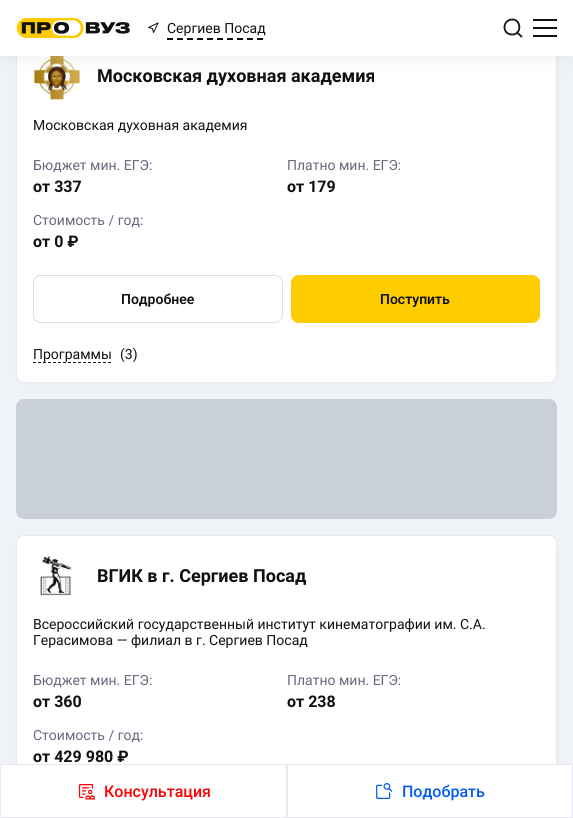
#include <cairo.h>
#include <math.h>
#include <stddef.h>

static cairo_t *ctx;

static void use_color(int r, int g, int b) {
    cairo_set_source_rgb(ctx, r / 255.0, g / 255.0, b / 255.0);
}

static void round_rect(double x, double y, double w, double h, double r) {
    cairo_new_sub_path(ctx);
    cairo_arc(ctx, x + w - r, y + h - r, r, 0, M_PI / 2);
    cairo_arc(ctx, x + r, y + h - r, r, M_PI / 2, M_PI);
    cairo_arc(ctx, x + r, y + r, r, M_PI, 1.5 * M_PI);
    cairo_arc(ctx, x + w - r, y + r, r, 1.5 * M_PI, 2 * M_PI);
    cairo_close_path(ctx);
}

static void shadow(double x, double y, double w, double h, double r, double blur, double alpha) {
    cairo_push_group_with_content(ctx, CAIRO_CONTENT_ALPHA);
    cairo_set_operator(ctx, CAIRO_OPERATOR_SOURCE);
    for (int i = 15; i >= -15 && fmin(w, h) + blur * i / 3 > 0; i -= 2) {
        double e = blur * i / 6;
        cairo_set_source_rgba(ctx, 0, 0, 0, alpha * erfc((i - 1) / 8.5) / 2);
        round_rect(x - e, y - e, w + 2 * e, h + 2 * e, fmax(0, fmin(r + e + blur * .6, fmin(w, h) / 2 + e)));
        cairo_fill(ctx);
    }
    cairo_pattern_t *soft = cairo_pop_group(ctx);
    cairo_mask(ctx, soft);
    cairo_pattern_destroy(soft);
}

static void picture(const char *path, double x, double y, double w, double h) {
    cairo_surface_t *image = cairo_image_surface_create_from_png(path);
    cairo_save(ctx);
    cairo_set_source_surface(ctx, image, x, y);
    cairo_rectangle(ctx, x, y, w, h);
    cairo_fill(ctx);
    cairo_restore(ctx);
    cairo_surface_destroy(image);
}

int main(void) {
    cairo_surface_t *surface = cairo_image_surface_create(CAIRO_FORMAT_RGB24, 573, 818);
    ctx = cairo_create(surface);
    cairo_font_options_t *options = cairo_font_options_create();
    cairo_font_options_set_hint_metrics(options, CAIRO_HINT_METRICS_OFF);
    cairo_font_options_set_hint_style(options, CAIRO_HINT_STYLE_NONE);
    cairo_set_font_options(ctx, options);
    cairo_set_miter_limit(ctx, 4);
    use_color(241, 245, 249);
    cairo_paint(ctx);
    use_color(207, 207, 207);
    shadow(16, 36, 541, 347, 8, 12, 0.25);
    use_color(255, 255, 255);
    round_rect(16.5, 36.5, 540, 346, 7.5);
    cairo_fill_preserve(ctx);
    use_color(231, 231, 243);
    cairo_set_line_width(ctx, 1);
    cairo_stroke(ctx);
    picture("img3.png", 33, 56, 48, 45);
    use_color(204, 204, 204);
    shadow(0, 4, 573, 56, 0, 8, 0.25);
    use_color(255, 255, 255);
    cairo_rectangle(ctx, 0, 0, 573, 56);
    cairo_fill(ctx);
    picture("img1.png", 16, 18, 114, 20);
    cairo_new_path(ctx);
    cairo_move_to(ctx, 148.5, 27.5);
    cairo_line_to(ctx, 158, 23);
    cairo_line_to(ctx, 153.5, 32.5);
    cairo_line_to(ctx, 152.5, 28.5);
    cairo_close_path(ctx);
    use_color(17, 17, 17);
    cairo_set_line_cap(ctx, CAIRO_LINE_CAP_ROUND);
    cairo_set_line_join(ctx, CAIRO_LINE_JOIN_ROUND);
    cairo_stroke(ctx);
    cairo_select_font_face(ctx, "Roboto", CAIRO_FONT_SLANT_NORMAL, CAIRO_FONT_WEIGHT_NORMAL);
    cairo_set_font_size(ctx, 14);
    cairo_move_to(ctx, 167, 33);
    cairo_show_text(ctx, "Сергиев Посад");
    cairo_new_path(ctx);
    cairo_move_to(ctx, 167, 39);
    cairo_line_to(ctx, 265.5, 39);
    cairo_set_line_width(ctx, 2);
    cairo_set_line_cap(ctx, CAIRO_LINE_CAP_BUTT);
    cairo_set_line_join(ctx, CAIRO_LINE_JOIN_MITER);
    cairo_set_dash(ctx, (double[]){6, 4}, 2, 0);
    cairo_stroke(ctx);
    cairo_new_path(ctx);
    cairo_move_to(ctx, 512, 34.5);
    cairo_curve_to(ctx, 522, 35, 521.5, 19, 512, 19.5);
    cairo_curve_to(ctx, 502, 20, 502, 34.5, 512, 34.5);
    cairo_close_path(ctx);
    cairo_move_to(ctx, 521.5, 36.5);
    cairo_line_to(ctx, 517, 32.5);
    use_color(28, 27, 31);
    cairo_set_line_width(ctx, 1.9);
    cairo_set_line_cap(ctx, CAIRO_LINE_CAP_ROUND);
    cairo_set_line_join(ctx, CAIRO_LINE_JOIN_ROUND);
    cairo_set_dash(ctx, NULL, 0, 0);
    cairo_stroke(ctx);
    picture("img2.png", 533, 19, 24, 18);
    cairo_select_font_face(ctx, "Roboto", CAIRO_FONT_SLANT_NORMAL, CAIRO_FONT_WEIGHT_BOLD);
    cairo_set_font_size(ctx, 18);
    use_color(17, 17, 17);
    cairo_move_to(ctx, 97, 82);
    cairo_show_text(ctx, "Московская духовная академия");
    cairo_select_font_face(ctx, "Roboto", CAIRO_FONT_SLANT_NORMAL, CAIRO_FONT_WEIGHT_NORMAL);
    cairo_set_font_size(ctx, 14);
    cairo_move_to(ctx, 33, 130);
    cairo_show_text(ctx, "Московская духовная академия");
    use_color(103, 105, 126);
    cairo_move_to(ctx, 33, 170);
    cairo_show_text(ctx, "Бюджет мин. ЕГЭ:");
    cairo_select_font_face(ctx, "Roboto", CAIRO_FONT_SLANT_NORMAL, CAIRO_FONT_WEIGHT_BOLD);
    cairo_set_font_size(ctx, 16);
    use_color(17, 17, 17);
    cairo_move_to(ctx, 33, 192);
    cairo_show_text(ctx, "от 337");
    cairo_select_font_face(ctx, "Roboto", CAIRO_FONT_SLANT_NORMAL, CAIRO_FONT_WEIGHT_NORMAL);
    cairo_set_font_size(ctx, 14);
    use_color(103, 105, 126);
    cairo_move_to(ctx, 287, 170);
    cairo_show_text(ctx, "Платно мин. ЕГЭ:");
    cairo_select_font_face(ctx, "Roboto", CAIRO_FONT_SLANT_NORMAL, CAIRO_FONT_WEIGHT_BOLD);
    cairo_set_font_size(ctx, 16);
    use_color(17, 17, 17);
    cairo_move_to(ctx, 287, 192);
    cairo_show_text(ctx, "от 179");
    cairo_select_font_face(ctx, "Roboto", CAIRO_FONT_SLANT_NORMAL, CAIRO_FONT_WEIGHT_NORMAL);
    cairo_set_font_size(ctx, 14);
    use_color(103, 105, 126);
    cairo_move_to(ctx, 33, 225);
    cairo_show_text(ctx, "Стоимость / год:");
    cairo_select_font_face(ctx, "Roboto", CAIRO_FONT_SLANT_NORMAL, CAIRO_FONT_WEIGHT_BOLD);
    cairo_set_font_size(ctx, 16);
    use_color(17, 17, 17);
    cairo_move_to(ctx, 33, 247);
    cairo_show_text(ctx, "от 0 ₽");
    round_rect(33.5, 275.5, 249, 47, 7.5);
    use_color(213, 224, 234);
    cairo_set_line_width(ctx, 1);
    cairo_set_line_cap(ctx, CAIRO_LINE_CAP_BUTT);
    cairo_set_line_join(ctx, CAIRO_LINE_JOIN_MITER);
    cairo_stroke(ctx);
    cairo_select_font_face(ctx, "Roboto SemiBold", CAIRO_FONT_SLANT_NORMAL, CAIRO_FONT_WEIGHT_NORMAL);
    cairo_set_font_size(ctx, 14);
    use_color(17, 17, 17);
    cairo_move_to(ctx, 121, 304);
    cairo_show_text(ctx, "Подробнее");
    use_color(255, 204, 0);
    round_rect(291.5, 275.5, 248, 47, 7.5);
    cairo_fill_preserve(ctx);
    cairo_stroke(ctx);
    use_color(17, 17, 17);
    cairo_move_to(ctx, 380, 304);
    cairo_show_text(ctx, "Поступить");
    cairo_select_font_face(ctx, "Roboto", CAIRO_FONT_SLANT_NORMAL, CAIRO_FONT_WEIGHT_NORMAL);
    cairo_move_to(ctx, 33, 359);
    cairo_show_text(ctx, "Программы");
    cairo_new_path(ctx);
    cairo_move_to(ctx, 33, 362.5);
    cairo_line_to(ctx, 112, 362.5);
    cairo_set_dash(ctx, (double[]){3, 2}, 2, 0);
    cairo_stroke(ctx);
    cairo_move_to(ctx, 120, 359);
    cairo_show_text(ctx, "(3)");
    use_color(207, 207, 207);
    shadow(16, 535, 541, 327, 8, 12, 0.25);
    use_color(202, 208, 215);
    round_rect(16, 399, 541, 120, 8);
    cairo_fill(ctx);
    use_color(255, 255, 255);
    round_rect(16.5, 535.5, 540, 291, 7.5);
    cairo_fill_preserve(ctx);
    use_color(231, 231, 243);
    cairo_set_dash(ctx, NULL, 0, 0);
    cairo_stroke(ctx);
    picture("img4.png", 40, 556, 32, 40);
    cairo_select_font_face(ctx, "Roboto", CAIRO_FONT_SLANT_NORMAL, CAIRO_FONT_WEIGHT_BOLD);
    cairo_set_font_size(ctx, 18);
    use_color(17, 17, 17);
    cairo_move_to(ctx, 97, 582);
    cairo_show_text(ctx, "ВГИК в г. Сергиев Посад");
    cairo_select_font_face(ctx, "Roboto", CAIRO_FONT_SLANT_NORMAL, CAIRO_FONT_WEIGHT_NORMAL);
    cairo_set_font_size(ctx, 14);
    cairo_move_to(ctx, 33, 629);
    cairo_show_text(ctx, "Всероссийский государственный институт кинематографии им. С.А.");
    cairo_move_to(ctx, 33, 645);
    cairo_show_text(ctx, "Герасимова — филиал в г. Сергиев Посад");
    use_color(103, 105, 126);
    cairo_move_to(ctx, 33, 685);
    cairo_show_text(ctx, "Бюджет мин. ЕГЭ:");
    cairo_select_font_face(ctx, "Roboto", CAIRO_FONT_SLANT_NORMAL, CAIRO_FONT_WEIGHT_BOLD);
    cairo_set_font_size(ctx, 16);
    use_color(17, 17, 17);
    cairo_move_to(ctx, 33, 707);
    cairo_show_text(ctx, "от 360");
    cairo_select_font_face(ctx, "Roboto", CAIRO_FONT_SLANT_NORMAL, CAIRO_FONT_WEIGHT_NORMAL);
    cairo_set_font_size(ctx, 14);
    use_color(103, 105, 126);
    cairo_move_to(ctx, 287, 685);
    cairo_show_text(ctx, "Платно мин. ЕГЭ:");
    cairo_select_font_face(ctx, "Roboto", CAIRO_FONT_SLANT_NORMAL, CAIRO_FONT_WEIGHT_BOLD);
    cairo_set_font_size(ctx, 16);
    use_color(17, 17, 17);
    cairo_move_to(ctx, 287, 707);
    cairo_show_text(ctx, "от 238");
    cairo_select_font_face(ctx, "Roboto", CAIRO_FONT_SLANT_NORMAL, CAIRO_FONT_WEIGHT_NORMAL);
    cairo_set_font_size(ctx, 14);
    use_color(103, 105, 126);
    cairo_move_to(ctx, 33, 740);
    cairo_show_text(ctx, "Стоимость / год:");
    cairo_select_font_face(ctx, "Roboto", CAIRO_FONT_SLANT_NORMAL, CAIRO_FONT_WEIGHT_BOLD);
    cairo_set_font_size(ctx, 16);
    use_color(17, 17, 17);
    cairo_move_to(ctx, 33, 762);
    cairo_show_text(ctx, "от 429 980 ₽");
    use_color(255, 255, 255);
    cairo_rectangle(ctx, 1, 765, 571, 52);
    cairo_fill(ctx);
    cairo_rectangle(ctx, 0.5, 764.5, 286, 53);
    use_color(231, 231, 243);
    cairo_stroke(ctx);
    picture("img5.png", 78, 784, 17, 16);
    cairo_select_font_face(ctx, "Roboto Medium", CAIRO_FONT_SLANT_NORMAL, CAIRO_FONT_WEIGHT_NORMAL);
    use_color(255, 0, 0);
    cairo_move_to(ctx, 104, 797);
    cairo_show_text(ctx, "Консультация");
    cairo_rectangle(ctx, 287.5, 764.5, 285, 53);
    use_color(231, 231, 243);
    cairo_stroke(ctx);
    picture("img6.png", 376, 783, 17, 16);
    use_color(0, 91, 242);
    cairo_move_to(ctx, 402, 797);
    cairo_show_text(ctx, "Подобрать");
    cairo_surface_write_to_png(surface, "result.png");
    cairo_font_options_destroy(options);
    cairo_destroy(ctx);
    cairo_surface_destroy(surface);
    return 0;
}
